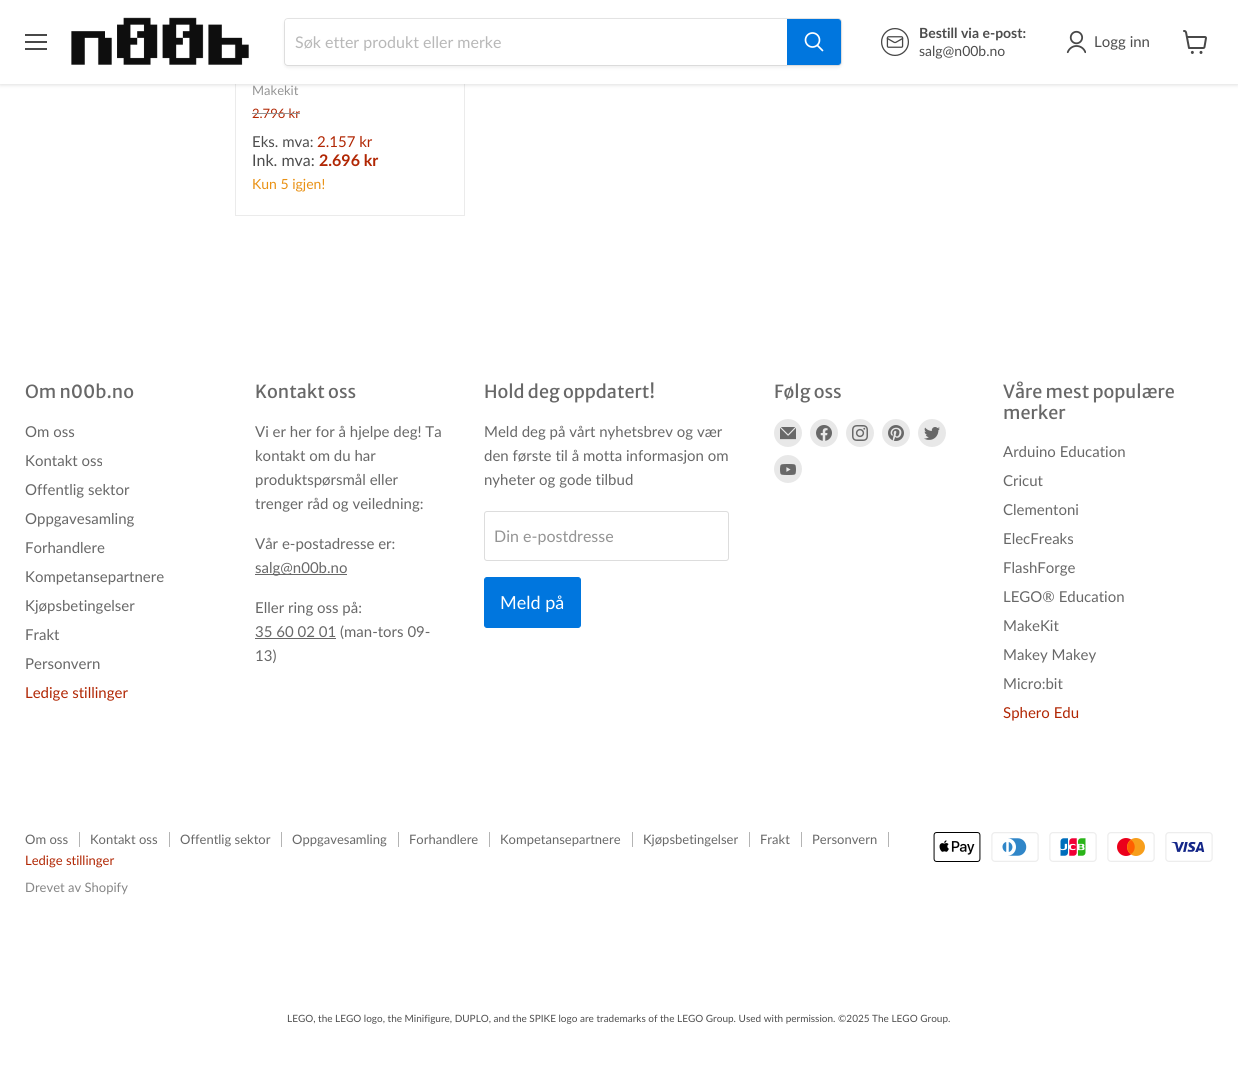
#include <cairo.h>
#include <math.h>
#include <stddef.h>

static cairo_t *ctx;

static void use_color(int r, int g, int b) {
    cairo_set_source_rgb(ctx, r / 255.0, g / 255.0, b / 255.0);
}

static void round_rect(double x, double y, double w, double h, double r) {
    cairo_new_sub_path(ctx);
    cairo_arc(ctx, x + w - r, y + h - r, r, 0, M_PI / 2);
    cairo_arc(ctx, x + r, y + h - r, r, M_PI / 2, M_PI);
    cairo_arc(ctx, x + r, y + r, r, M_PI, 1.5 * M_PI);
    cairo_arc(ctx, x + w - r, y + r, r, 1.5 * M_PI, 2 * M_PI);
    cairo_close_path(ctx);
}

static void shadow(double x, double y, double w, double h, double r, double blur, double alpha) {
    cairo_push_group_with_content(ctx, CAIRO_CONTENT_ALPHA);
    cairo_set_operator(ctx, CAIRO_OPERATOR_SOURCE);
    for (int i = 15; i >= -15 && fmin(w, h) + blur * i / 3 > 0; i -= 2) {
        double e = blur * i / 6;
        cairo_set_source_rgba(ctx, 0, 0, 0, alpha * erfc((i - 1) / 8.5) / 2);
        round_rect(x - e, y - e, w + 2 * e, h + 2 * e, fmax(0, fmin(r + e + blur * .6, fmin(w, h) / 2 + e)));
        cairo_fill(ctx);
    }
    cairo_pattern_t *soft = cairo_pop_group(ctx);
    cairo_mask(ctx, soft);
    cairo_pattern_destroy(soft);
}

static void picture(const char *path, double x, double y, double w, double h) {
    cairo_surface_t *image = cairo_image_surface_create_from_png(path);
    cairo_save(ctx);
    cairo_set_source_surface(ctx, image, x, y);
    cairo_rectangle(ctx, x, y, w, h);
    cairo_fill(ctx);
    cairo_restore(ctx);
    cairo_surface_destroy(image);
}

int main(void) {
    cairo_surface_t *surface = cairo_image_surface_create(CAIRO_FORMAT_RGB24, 1238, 1075);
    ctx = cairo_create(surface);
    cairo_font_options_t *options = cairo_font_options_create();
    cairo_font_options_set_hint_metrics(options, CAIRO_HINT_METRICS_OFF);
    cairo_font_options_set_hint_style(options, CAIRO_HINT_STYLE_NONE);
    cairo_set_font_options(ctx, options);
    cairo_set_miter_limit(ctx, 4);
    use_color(255, 255, 255);
    cairo_paint(ctx);
    cairo_rectangle(ctx, 235.5, -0.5, 229, 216);
    use_color(235, 235, 235);
    cairo_set_line_width(ctx, 1);
    cairo_stroke(ctx);
    use_color(128, 128, 128);
    shadow(0, 1, 1238, 84, 0, 2, 0.25);
    use_color(255, 255, 255);
    cairo_rectangle(ctx, 0, 0, 1238, 84);
    cairo_fill(ctx);
    use_color(72, 72, 72);
    cairo_rectangle(ctx, 25, 34, 22, 2);
    cairo_fill(ctx);
    cairo_rectangle(ctx, 25, 41, 22, 2);
    cairo_fill(ctx);
    cairo_rectangle(ctx, 25, 48, 22, 2);
    cairo_fill(ctx);
    picture("img1.png", 71, 17, 178, 48);
    use_color(128, 128, 128);
    shadow(284, 20, 558, 48, 4, 1.5, 0.11);
    round_rect(284.5, 18.5, 557, 47, 3.5);
    cairo_set_source_rgba(ctx, 0.502, 0.502, 0.502, 0.2);
    cairo_stroke(ctx);
    use_color(255, 255, 255);
    cairo_new_path(ctx);
    cairo_move_to(ctx, 288, 19);
    cairo_line_to(ctx, 787, 19);
    cairo_line_to(ctx, 787, 65);
    cairo_line_to(ctx, 288, 65);
    cairo_curve_to(ctx, 286.5, 65, 285, 63.5, 285, 62);
    cairo_line_to(ctx, 285, 22);
    cairo_curve_to(ctx, 285, 20.5, 286.5, 19, 288, 19);
    cairo_close_path(ctx);
    cairo_fill(ctx);
    cairo_select_font_face(ctx, "Lato", CAIRO_FONT_SLANT_NORMAL, CAIRO_FONT_WEIGHT_NORMAL);
    cairo_set_font_size(ctx, 16);
    use_color(184, 184, 184);
    cairo_move_to(ctx, 295, 48);
    cairo_show_text(ctx, "Søk etter produkt eller merke");
    use_color(0, 118, 222);
    cairo_new_path(ctx);
    cairo_move_to(ctx, 787.5, 19.5);
    cairo_line_to(ctx, 838, 19.5);
    cairo_curve_to(ctx, 839.5, 19.5, 840.5, 20.5, 840.5, 22);
    cairo_line_to(ctx, 840.5, 62);
    cairo_curve_to(ctx, 840.5, 63.5, 839.5, 64.5, 838, 64.5);
    cairo_line_to(ctx, 787.5, 64.5);
    cairo_close_path(ctx);
    cairo_fill_preserve(ctx);
    cairo_stroke(ctx);
    cairo_new_path(ctx);
    cairo_move_to(ctx, 822.5, 50.5);
    cairo_line_to(ctx, 817.5, 45.5);
    use_color(255, 255, 255);
    cairo_set_line_width(ctx, 1.7);
    cairo_set_line_cap(ctx, CAIRO_LINE_CAP_ROUND);
    cairo_stroke(ctx);
    cairo_arc(ctx, 812.5, 40, 7, 0, 2 * M_PI);
    cairo_set_line_cap(ctx, CAIRO_LINE_CAP_BUTT);
    cairo_stroke(ctx);
    picture("img2.png", 881, 28, 28, 28);
    cairo_select_font_face(ctx, "Lato", CAIRO_FONT_SLANT_NORMAL, CAIRO_FONT_WEIGHT_BOLD);
    cairo_set_font_size(ctx, 14);
    use_color(77, 77, 77);
    cairo_move_to(ctx, 919, 38);
    cairo_show_text(ctx, "Bestill via e-post:");
    cairo_select_font_face(ctx, "Lato", CAIRO_FONT_SLANT_NORMAL, CAIRO_FONT_WEIGHT_NORMAL);
    cairo_move_to(ctx, 919, 56);
    cairo_show_text(ctx, "salg@n00b.no");
    picture("img3.png", 1066, 30, 20, 24);
    cairo_set_font_size(ctx, 15);
    cairo_move_to(ctx, 1094, 47);
    cairo_show_text(ctx, "Logg inn");
    picture("img4.png", 1183, 30, 24, 24);
    cairo_set_font_size(ctx, 13);
    use_color(148, 148, 148);
    cairo_move_to(ctx, 252, 95);
    cairo_show_text(ctx, "Makekit");
    use_color(177, 39, 4);
    cairo_move_to(ctx, 252, 118);
    cairo_show_text(ctx, "2.796 kr");
    use_color(148, 148, 148);
    cairo_rectangle(ctx, 252, 113, 48, 1);
    cairo_fill(ctx);
    cairo_set_font_size(ctx, 15);
    use_color(77, 77, 77);
    cairo_move_to(ctx, 252, 147);
    cairo_show_text(ctx, "Eks. mva:");
    use_color(177, 39, 4);
    cairo_move_to(ctx, 317, 147);
    cairo_show_text(ctx, "2.157 kr");
    cairo_set_font_size(ctx, 16);
    use_color(77, 77, 77);
    cairo_move_to(ctx, 252, 166);
    cairo_show_text(ctx, "Ink. mva:");
    cairo_select_font_face(ctx, "Lato", CAIRO_FONT_SLANT_NORMAL, CAIRO_FONT_WEIGHT_BOLD);
    use_color(177, 39, 4);
    cairo_move_to(ctx, 319, 166);
    cairo_show_text(ctx, "2.696 kr");
    cairo_select_font_face(ctx, "Lato", CAIRO_FONT_SLANT_NORMAL, CAIRO_FONT_WEIGHT_NORMAL);
    cairo_set_font_size(ctx, 14);
    use_color(233, 145, 20);
    cairo_move_to(ctx, 252, 189);
    cairo_show_text(ctx, "Kun 5 igjen!");
    cairo_select_font_face(ctx, "Merriweather Sans", CAIRO_FONT_SLANT_NORMAL, CAIRO_FONT_WEIGHT_NORMAL);
    cairo_set_font_size(ctx, 18);
    use_color(104, 104, 104);
    cairo_move_to(ctx, 25, 398);
    cairo_show_text(ctx, "Om n00b.no");
    cairo_select_font_face(ctx, "Lato", CAIRO_FONT_SLANT_NORMAL, CAIRO_FONT_WEIGHT_NORMAL);
    cairo_set_font_size(ctx, 15);
    cairo_move_to(ctx, 25, 437);
    cairo_show_text(ctx, "Om oss");
    cairo_move_to(ctx, 25, 466);
    cairo_show_text(ctx, "Kontakt oss");
    cairo_move_to(ctx, 25, 495);
    cairo_show_text(ctx, "Offentlig sektor");
    cairo_move_to(ctx, 25, 524);
    cairo_show_text(ctx, "Oppgavesamling");
    cairo_move_to(ctx, 25, 553);
    cairo_show_text(ctx, "Forhandlere");
    cairo_move_to(ctx, 25, 582);
    cairo_show_text(ctx, "Kompetansepartnere");
    cairo_move_to(ctx, 25, 611);
    cairo_show_text(ctx, "Kjøpsbetingelser");
    cairo_move_to(ctx, 25, 640);
    cairo_show_text(ctx, "Frakt");
    cairo_move_to(ctx, 25, 669);
    cairo_show_text(ctx, "Personvern");
    use_color(177, 39, 4);
    cairo_move_to(ctx, 25, 698);
    cairo_show_text(ctx, "Ledige stillinger");
    cairo_select_font_face(ctx, "Merriweather Sans", CAIRO_FONT_SLANT_NORMAL, CAIRO_FONT_WEIGHT_NORMAL);
    cairo_set_font_size(ctx, 18);
    use_color(104, 104, 104);
    cairo_move_to(ctx, 255, 398);
    cairo_show_text(ctx, "Kontakt oss");
    cairo_select_font_face(ctx, "Lato", CAIRO_FONT_SLANT_NORMAL, CAIRO_FONT_WEIGHT_NORMAL);
    cairo_set_font_size(ctx, 15);
    cairo_move_to(ctx, 255, 437);
    cairo_show_text(ctx, "Vi er her for å hjelpe deg! Ta");
    cairo_move_to(ctx, 255, 461);
    cairo_show_text(ctx, "kontakt om du har");
    cairo_move_to(ctx, 255, 485);
    cairo_show_text(ctx, "produktspørsmål eller");
    cairo_move_to(ctx, 255, 509);
    cairo_show_text(ctx, "trenger råd og veiledning:");
    cairo_move_to(ctx, 255, 549);
    cairo_show_text(ctx, "Vår e-postadresse er:");
    cairo_rectangle(ctx, 255, 574, 92, 1);
    cairo_fill(ctx);
    cairo_move_to(ctx, 255, 573);
    cairo_show_text(ctx, "salg@n00b.no");
    cairo_move_to(ctx, 255, 613);
    cairo_show_text(ctx, "Eller ring oss på:");
    cairo_rectangle(ctx, 255, 638, 81, 1);
    cairo_fill(ctx);
    cairo_move_to(ctx, 255, 637);
    cairo_show_text(ctx, "35 60 02 01 (man-tors 09-");
    cairo_move_to(ctx, 255, 661);
    cairo_show_text(ctx, "13)");
    cairo_select_font_face(ctx, "Merriweather Sans", CAIRO_FONT_SLANT_NORMAL, CAIRO_FONT_WEIGHT_NORMAL);
    cairo_set_font_size(ctx, 18);
    cairo_move_to(ctx, 484, 398);
    cairo_show_text(ctx, "Hold deg oppdatert!");
    cairo_select_font_face(ctx, "Lato", CAIRO_FONT_SLANT_NORMAL, CAIRO_FONT_WEIGHT_NORMAL);
    cairo_set_font_size(ctx, 15);
    cairo_move_to(ctx, 484, 437);
    cairo_show_text(ctx, "Meld deg på vårt nyhetsbrev og vær");
    cairo_move_to(ctx, 484, 461);
    cairo_show_text(ctx, "den første til å motta informasjon om");
    cairo_move_to(ctx, 484, 485);
    cairo_show_text(ctx, "nyheter og gode tilbud");
    round_rect(484.5, 511.5, 244, 49, 2.5);
    use_color(221, 221, 221);
    cairo_set_line_width(ctx, 1);
    cairo_stroke(ctx);
    cairo_set_font_size(ctx, 16);
    use_color(148, 148, 148);
    cairo_move_to(ctx, 494, 542);
    cairo_show_text(ctx, "Din e-postdresse");
    use_color(0, 118, 222);
    round_rect(484.5, 577.5, 96, 50, 2.5);
    cairo_fill_preserve(ctx);
    cairo_stroke(ctx);
    cairo_set_font_size(ctx, 18);
    use_color(255, 255, 255);
    cairo_move_to(ctx, 500, 609);
    cairo_show_text(ctx, "Meld på");
    cairo_select_font_face(ctx, "Merriweather Sans", CAIRO_FONT_SLANT_NORMAL, CAIRO_FONT_WEIGHT_NORMAL);
    use_color(104, 104, 104);
    cairo_move_to(ctx, 774, 398);
    cairo_show_text(ctx, "Følg oss");
    use_color(232, 232, 232);
    cairo_new_path(ctx);
    cairo_arc(ctx, 788, 433, 14, 0, 2 * M_PI);
    cairo_fill(ctx);
    picture("img5.png", 780, 427, 16, 13);
    cairo_arc(ctx, 824, 433, 14, 0, 2 * M_PI);
    cairo_fill(ctx);
    picture("img6.png", 816, 425, 16, 16);
    cairo_arc(ctx, 860, 433, 14, 0, 2 * M_PI);
    cairo_fill(ctx);
    picture("img7.png", 852, 425, 16, 16);
    cairo_arc(ctx, 896, 433, 14, 0, 2 * M_PI);
    cairo_fill(ctx);
    picture("img8.png", 888, 425, 16, 16);
    cairo_arc(ctx, 932, 433, 14, 0, 2 * M_PI);
    cairo_fill(ctx);
    picture("img9.png", 924, 427, 16, 13);
    cairo_arc(ctx, 788, 469, 14, 0, 2 * M_PI);
    cairo_fill(ctx);
    picture("img10.png", 780, 464, 16, 11);
    use_color(104, 104, 104);
    cairo_move_to(ctx, 1003, 398);
    cairo_show_text(ctx, "Våre mest populære");
    cairo_move_to(ctx, 1003, 419);
    cairo_show_text(ctx, "merker");
    cairo_select_font_face(ctx, "Lato", CAIRO_FONT_SLANT_NORMAL, CAIRO_FONT_WEIGHT_NORMAL);
    cairo_set_font_size(ctx, 15);
    cairo_move_to(ctx, 1003, 457);
    cairo_show_text(ctx, "Arduino Education");
    cairo_move_to(ctx, 1003, 486);
    cairo_show_text(ctx, "Cricut");
    cairo_move_to(ctx, 1003, 515);
    cairo_show_text(ctx, "Clementoni");
    cairo_move_to(ctx, 1003, 544);
    cairo_show_text(ctx, "ElecFreaks");
    cairo_move_to(ctx, 1003, 573);
    cairo_show_text(ctx, "FlashForge");
    cairo_move_to(ctx, 1003, 602);
    cairo_show_text(ctx, "LEGO® Education");
    cairo_move_to(ctx, 1003, 631);
    cairo_show_text(ctx, "MakeKit");
    cairo_move_to(ctx, 1003, 660);
    cairo_show_text(ctx, "Makey Makey");
    cairo_move_to(ctx, 1003, 689);
    cairo_show_text(ctx, "Micro:bit");
    use_color(177, 39, 4);
    cairo_move_to(ctx, 1003, 718);
    cairo_show_text(ctx, "Sphero Edu");
    use_color(180, 180, 180);
    cairo_rectangle(ctx, 79, 832, 1, 15);
    cairo_fill(ctx);
    cairo_set_font_size(ctx, 13);
    use_color(104, 104, 104);
    cairo_move_to(ctx, 25, 844);
    cairo_show_text(ctx, "Om oss");
    use_color(180, 180, 180);
    cairo_rectangle(ctx, 169, 832, 1, 15);
    cairo_fill(ctx);
    use_color(104, 104, 104);
    cairo_move_to(ctx, 90, 844);
    cairo_show_text(ctx, "Kontakt oss");
    use_color(180, 180, 180);
    cairo_rectangle(ctx, 281, 832, 1, 15);
    cairo_fill(ctx);
    use_color(104, 104, 104);
    cairo_move_to(ctx, 180, 844);
    cairo_show_text(ctx, "Offentlig sektor");
    use_color(180, 180, 180);
    cairo_rectangle(ctx, 398, 832, 1, 15);
    cairo_fill(ctx);
    use_color(104, 104, 104);
    cairo_move_to(ctx, 292, 844);
    cairo_show_text(ctx, "Oppgavesamling");
    use_color(180, 180, 180);
    cairo_rectangle(ctx, 489, 832, 1, 15);
    cairo_fill(ctx);
    use_color(104, 104, 104);
    cairo_move_to(ctx, 409, 844);
    cairo_show_text(ctx, "Forhandlere");
    use_color(180, 180, 180);
    cairo_rectangle(ctx, 632, 832, 1, 15);
    cairo_fill(ctx);
    use_color(104, 104, 104);
    cairo_move_to(ctx, 500, 844);
    cairo_show_text(ctx, "Kompetansepartnere");
    use_color(180, 180, 180);
    cairo_rectangle(ctx, 749, 832, 1, 15);
    cairo_fill(ctx);
    use_color(104, 104, 104);
    cairo_move_to(ctx, 643, 844);
    cairo_show_text(ctx, "Kjøpsbetingelser");
    use_color(180, 180, 180);
    cairo_rectangle(ctx, 801, 832, 1, 15);
    cairo_fill(ctx);
    use_color(104, 104, 104);
    cairo_move_to(ctx, 760, 844);
    cairo_show_text(ctx, "Frakt");
    use_color(180, 180, 180);
    cairo_rectangle(ctx, 888, 832, 1, 15);
    cairo_fill(ctx);
    use_color(104, 104, 104);
    cairo_move_to(ctx, 812, 844);
    cairo_show_text(ctx, "Personvern");
    use_color(177, 39, 4);
    cairo_move_to(ctx, 25, 865);
    cairo_show_text(ctx, "Ledige stillinger");
    use_color(134, 134, 134);
    cairo_move_to(ctx, 25, 892);
    cairo_show_text(ctx, "Drevet av Shopify");
    picture("img11.png", 933, 832, 48, 30);
    picture("img12.png", 991, 832, 48, 30);
    picture("img13.png", 1049, 832, 48, 30);
    picture("img14.png", 1107, 832, 48, 30);
    picture("img15.png", 1165, 832, 48, 30);
    cairo_set_font_size(ctx, 10);
    use_color(77, 77, 77);
    cairo_move_to(ctx, 287, 1022);
    cairo_show_text(ctx, "LEGO, the LEGO logo, the Minifigure, DUPLO, and the SPIKE logo are trademarks of the LEGO Group. Used with permission. ©2025 The LEGO Group.");
    cairo_surface_write_to_png(surface, "result.png");
    cairo_font_options_destroy(options);
    cairo_destroy(ctx);
    cairo_surface_destroy(surface);
    return 0;
}
